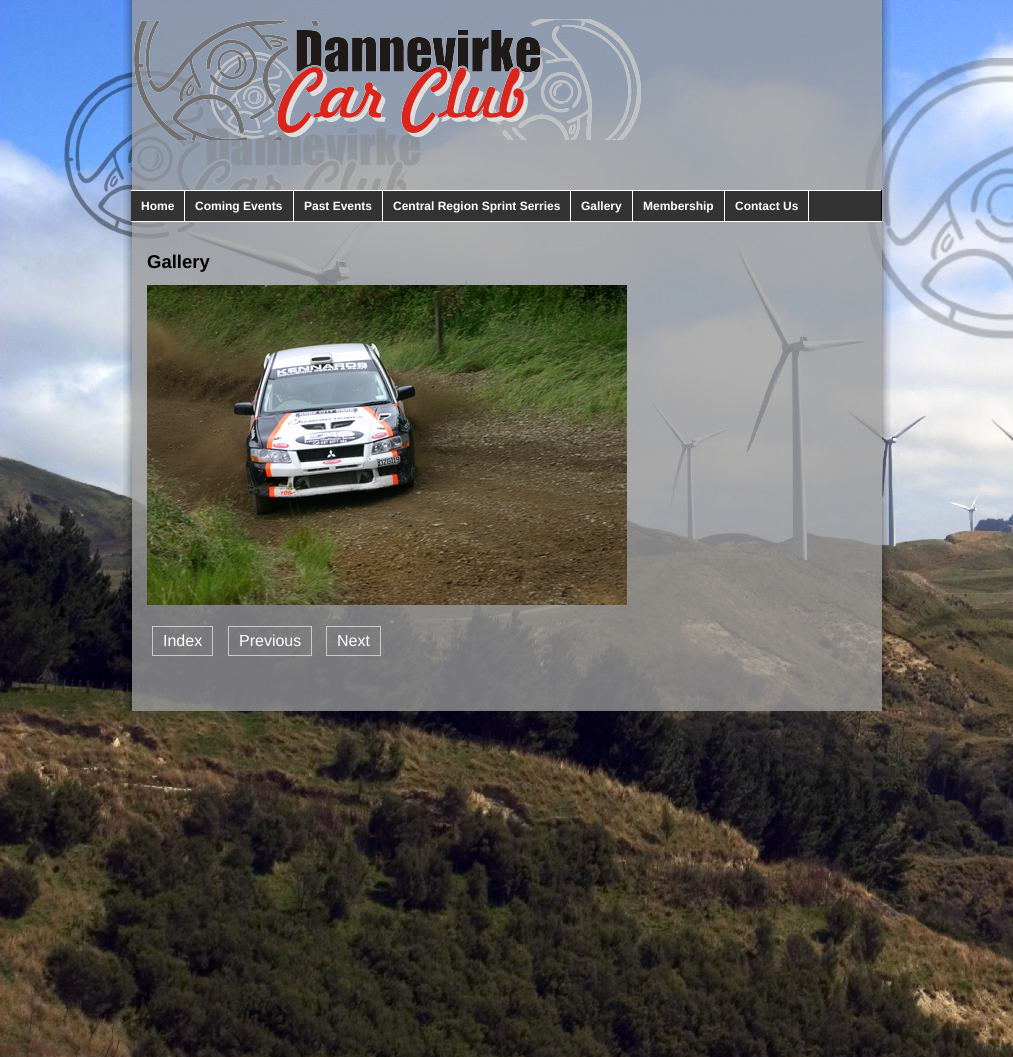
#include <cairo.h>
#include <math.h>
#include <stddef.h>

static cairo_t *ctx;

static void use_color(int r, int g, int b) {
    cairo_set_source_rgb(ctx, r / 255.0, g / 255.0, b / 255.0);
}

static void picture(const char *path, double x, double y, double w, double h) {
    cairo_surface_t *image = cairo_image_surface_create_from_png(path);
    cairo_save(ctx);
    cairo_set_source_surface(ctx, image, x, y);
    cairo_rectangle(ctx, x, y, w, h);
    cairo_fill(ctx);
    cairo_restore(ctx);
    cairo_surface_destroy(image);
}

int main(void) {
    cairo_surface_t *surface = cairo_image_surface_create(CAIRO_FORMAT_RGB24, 1013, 1057);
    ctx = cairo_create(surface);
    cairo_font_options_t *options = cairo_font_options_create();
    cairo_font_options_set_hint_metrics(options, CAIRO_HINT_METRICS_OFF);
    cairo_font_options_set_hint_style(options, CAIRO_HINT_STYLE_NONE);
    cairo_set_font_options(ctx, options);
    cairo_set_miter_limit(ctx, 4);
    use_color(255, 255, 255);
    cairo_paint(ctx);
    picture("img1.png", 0, 0, 1013, 1057);
    picture("img2.png", 123, 0, 768, 711);
    picture("img3.png", 134, 19, 507, 121);
    use_color(51, 51, 51);
    cairo_rectangle(ctx, 131, 191, 750, 30);
    cairo_fill(ctx);
    use_color(255, 255, 255);
    cairo_rectangle(ctx, 131, 190, 751, 1);
    cairo_fill(ctx);
    use_color(0, 0, 0);
    cairo_rectangle(ctx, 881, 190, 1, 32);
    cairo_fill(ctx);
    use_color(255, 255, 255);
    cairo_rectangle(ctx, 131, 221, 751, 1);
    cairo_fill(ctx);
    cairo_rectangle(ctx, 184, 191, 1, 30);
    cairo_fill(ctx);
    cairo_select_font_face(ctx, "Liberation Sans", CAIRO_FONT_SLANT_NORMAL, CAIRO_FONT_WEIGHT_BOLD);
    cairo_set_font_size(ctx, 12);
    cairo_move_to(ctx, 141, 210);
    cairo_show_text(ctx, "Home");
    cairo_rectangle(ctx, 293, 191, 1, 30);
    cairo_fill(ctx);
    cairo_move_to(ctx, 195, 210);
    cairo_show_text(ctx, "Coming Events");
    cairo_rectangle(ctx, 382, 191, 1, 30);
    cairo_fill(ctx);
    cairo_move_to(ctx, 304, 210);
    cairo_show_text(ctx, "Past Events");
    cairo_rectangle(ctx, 570, 191, 1, 30);
    cairo_fill(ctx);
    cairo_move_to(ctx, 393, 210);
    cairo_show_text(ctx, "Central Region Sprint Serries");
    cairo_rectangle(ctx, 632, 191, 1, 30);
    cairo_fill(ctx);
    cairo_move_to(ctx, 581, 210);
    cairo_show_text(ctx, "Gallery");
    cairo_rectangle(ctx, 724, 191, 1, 30);
    cairo_fill(ctx);
    cairo_move_to(ctx, 643, 210);
    cairo_show_text(ctx, "Membership");
    cairo_rectangle(ctx, 808, 191, 1, 30);
    cairo_fill(ctx);
    cairo_move_to(ctx, 735, 210);
    cairo_show_text(ctx, "Contact Us");
    cairo_set_font_size(ctx, 18.5);
    use_color(0, 0, 0);
    cairo_move_to(ctx, 147, 268);
    cairo_show_text(ctx, "Gallery");
    picture("img4.png", 147, 285, 480, 320);
    cairo_rectangle(ctx, 152.5, 626.5, 60, 29);
    use_color(202, 202, 202);
    cairo_set_line_width(ctx, 1);
    cairo_stroke(ctx);
    cairo_select_font_face(ctx, "Liberation Sans", CAIRO_FONT_SLANT_NORMAL, CAIRO_FONT_WEIGHT_NORMAL);
    cairo_set_font_size(ctx, 16);
    use_color(255, 255, 255);
    cairo_move_to(ctx, 163, 646);
    cairo_show_text(ctx, "Index");
    cairo_rectangle(ctx, 228.5, 626.5, 83, 29);
    use_color(202, 202, 202);
    cairo_stroke(ctx);
    use_color(255, 255, 255);
    cairo_move_to(ctx, 239, 646);
    cairo_show_text(ctx, "Previous");
    cairo_rectangle(ctx, 326.5, 626.5, 54, 29);
    use_color(202, 202, 202);
    cairo_stroke(ctx);
    use_color(255, 255, 255);
    cairo_move_to(ctx, 337, 646);
    cairo_show_text(ctx, "Next");
    cairo_surface_write_to_png(surface, "result.png");
    cairo_font_options_destroy(options);
    cairo_destroy(ctx);
    cairo_surface_destroy(surface);
    return 0;
}
